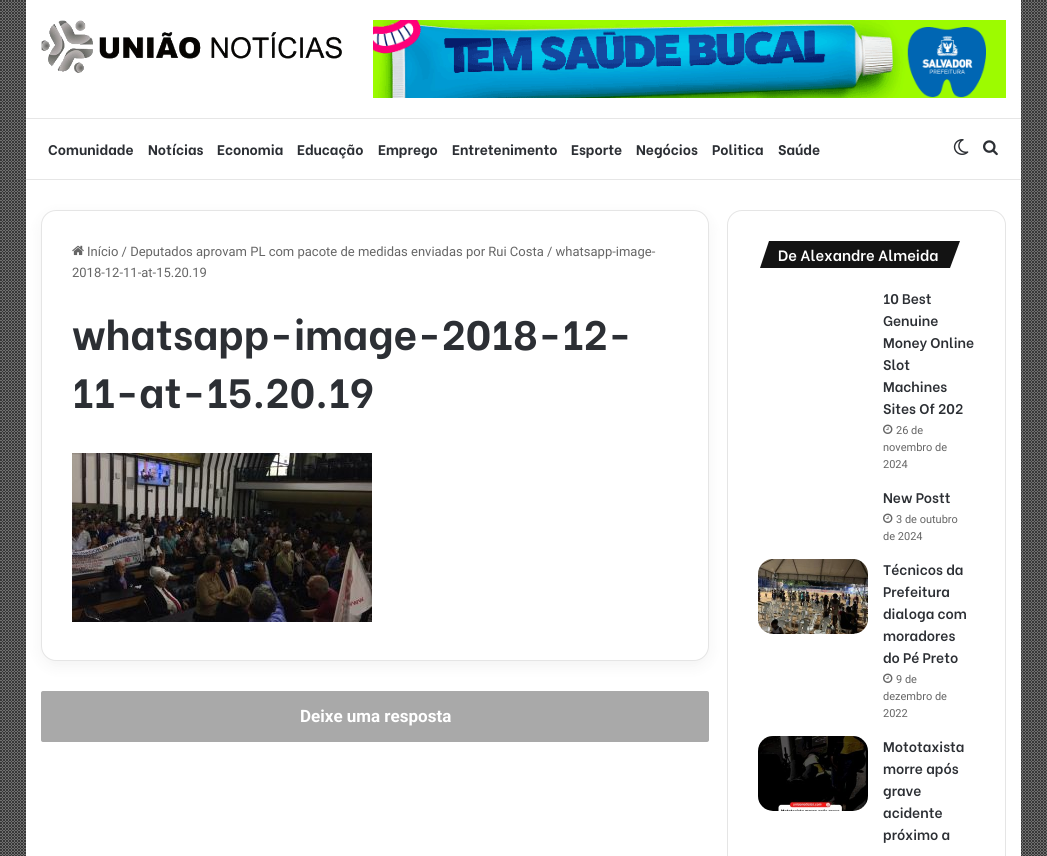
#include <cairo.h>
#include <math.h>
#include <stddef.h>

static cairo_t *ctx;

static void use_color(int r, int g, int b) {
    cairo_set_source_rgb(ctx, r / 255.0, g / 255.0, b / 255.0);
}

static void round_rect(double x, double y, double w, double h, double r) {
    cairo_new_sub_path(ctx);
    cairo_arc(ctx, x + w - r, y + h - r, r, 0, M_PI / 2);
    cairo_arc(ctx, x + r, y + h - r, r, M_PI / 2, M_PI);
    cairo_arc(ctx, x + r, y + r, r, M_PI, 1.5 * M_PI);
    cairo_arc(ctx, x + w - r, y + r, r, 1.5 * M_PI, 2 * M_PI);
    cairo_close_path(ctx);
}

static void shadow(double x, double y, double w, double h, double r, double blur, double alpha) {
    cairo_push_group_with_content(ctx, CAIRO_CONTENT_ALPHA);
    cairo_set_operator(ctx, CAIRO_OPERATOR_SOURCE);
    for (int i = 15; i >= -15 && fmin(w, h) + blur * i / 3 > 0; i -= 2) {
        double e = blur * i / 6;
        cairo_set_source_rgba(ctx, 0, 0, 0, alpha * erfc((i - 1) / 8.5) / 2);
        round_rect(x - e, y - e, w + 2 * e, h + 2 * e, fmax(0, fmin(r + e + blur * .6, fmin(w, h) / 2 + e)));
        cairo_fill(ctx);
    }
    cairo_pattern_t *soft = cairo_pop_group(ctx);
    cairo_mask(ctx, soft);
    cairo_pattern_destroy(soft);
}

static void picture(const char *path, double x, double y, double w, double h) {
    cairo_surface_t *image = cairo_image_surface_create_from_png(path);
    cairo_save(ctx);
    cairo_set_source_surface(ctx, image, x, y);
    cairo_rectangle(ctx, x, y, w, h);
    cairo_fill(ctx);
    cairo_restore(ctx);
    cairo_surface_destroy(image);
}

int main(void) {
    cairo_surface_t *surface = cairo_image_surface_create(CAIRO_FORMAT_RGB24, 1047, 856);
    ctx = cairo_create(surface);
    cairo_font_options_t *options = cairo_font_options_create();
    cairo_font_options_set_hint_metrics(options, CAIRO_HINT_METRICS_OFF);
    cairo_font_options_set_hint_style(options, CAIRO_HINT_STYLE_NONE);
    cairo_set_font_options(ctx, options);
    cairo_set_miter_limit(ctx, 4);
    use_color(112, 112, 112);
    cairo_paint(ctx);
    picture("img1.png", 0, 0, 1047, 856);
    use_color(255, 255, 255);
    cairo_rectangle(ctx, 26, 0, 995, 856);
    cairo_fill(ctx);
    picture("img2.png", 41, 20, 301, 53);
    picture("img3.png", 373, 20, 633, 78);
    use_color(230, 230, 230);
    cairo_rectangle(ctx, 26, 118, 995, 1);
    cairo_fill(ctx);
    cairo_rectangle(ctx, 26, 179, 995, 1);
    cairo_fill(ctx);
    cairo_select_font_face(ctx, "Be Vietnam", CAIRO_FONT_SLANT_NORMAL, CAIRO_FONT_WEIGHT_BOLD);
    cairo_set_font_size(ctx, 14);
    use_color(44, 47, 52);
    cairo_move_to(ctx, 48, 155);
    cairo_show_text(ctx, "Comunidade");
    cairo_move_to(ctx, 148, 155);
    cairo_show_text(ctx, "Notícias");
    cairo_move_to(ctx, 217, 155);
    cairo_show_text(ctx, "Economia");
    cairo_move_to(ctx, 297, 155);
    cairo_show_text(ctx, "Educação");
    cairo_move_to(ctx, 378, 155);
    cairo_show_text(ctx, "Emprego");
    cairo_move_to(ctx, 452, 155);
    cairo_show_text(ctx, "Entretenimento");
    cairo_move_to(ctx, 571, 155);
    cairo_show_text(ctx, "Esporte");
    cairo_move_to(ctx, 636, 155);
    cairo_show_text(ctx, "Negócios");
    cairo_move_to(ctx, 712, 155);
    cairo_show_text(ctx, "Politica");
    cairo_move_to(ctx, 778, 155);
    cairo_show_text(ctx, "Saúde");
    picture("img4.png", 953, 139, 16, 16);
    picture("img5.png", 983, 140, 15, 16);
    use_color(0, 0, 0);
    shadow(41, 215, 668, 451, 15, 7.5, 0.05);
    use_color(255, 255, 255);
    round_rect(41.5, 210.5, 667, 450, 14.5);
    cairo_fill_preserve(ctx);
    use_color(229, 229, 229);
    cairo_set_line_width(ctx, 1);
    cairo_stroke(ctx);
    picture("img6.png", 72, 245, 12, 11);
    cairo_select_font_face(ctx, "Roboto", CAIRO_FONT_SLANT_NORMAL, CAIRO_FONT_WEIGHT_NORMAL);
    cairo_set_font_size(ctx, 13);
    use_color(102, 102, 102);
    cairo_move_to(ctx, 87, 256);
    cairo_show_text(ctx, "Início / Deputados aprovam PL com pacote de medidas enviadas por Rui Costa / whatsapp-image-");
    cairo_move_to(ctx, 72, 277);
    cairo_show_text(ctx, "2018-12-11-at-15.20.19");
    cairo_select_font_face(ctx, "Be Vietnam", CAIRO_FONT_SLANT_NORMAL, CAIRO_FONT_WEIGHT_BOLD);
    cairo_set_font_size(ctx, 41);
    use_color(44, 47, 52);
    cairo_move_to(ctx, 72, 350);
    cairo_show_text(ctx, "whatsapp-image-2018-12-");
    cairo_move_to(ctx, 72, 408);
    cairo_show_text(ctx, "11-at-15.20.19");
    picture("img7.png", 72, 453, 300, 169);
    use_color(169, 169, 169);
    round_rect(41, 691, 668, 51, 2);
    cairo_fill(ctx);
    cairo_select_font_face(ctx, "Roboto", CAIRO_FONT_SLANT_NORMAL, CAIRO_FONT_WEIGHT_BOLD);
    cairo_set_font_size(ctx, 17);
    use_color(255, 255, 255);
    cairo_move_to(ctx, 300, 722);
    cairo_show_text(ctx, "Deixe uma resposta");
    round_rect(727.5, 210.5, 278, 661, 14.5);
    use_color(229, 229, 229);
    cairo_stroke(ctx);
    use_color(19, 19, 19);
    cairo_new_path(ctx);
    cairo_move_to(ctx, 769, 241);
    cairo_line_to(ctx, 960, 241);
    cairo_line_to(ctx, 950, 268);
    cairo_line_to(ctx, 760, 268);
    cairo_close_path(ctx);
    cairo_fill(ctx);
    cairo_select_font_face(ctx, "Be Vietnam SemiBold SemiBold", CAIRO_FONT_SLANT_NORMAL, CAIRO_FONT_WEIGHT_NORMAL);
    cairo_set_font_size(ctx, 15);
    use_color(255, 255, 255);
    cairo_move_to(ctx, 778, 261);
    cairo_show_text(ctx, "De Alexandre Almeida");
    cairo_set_font_size(ctx, 14);
    use_color(44, 47, 52);
    cairo_move_to(ctx, 883, 304);
    cairo_show_text(ctx, "10 Best");
    cairo_move_to(ctx, 883, 326);
    cairo_show_text(ctx, "Genuine");
    cairo_move_to(ctx, 883, 348);
    cairo_show_text(ctx, "Money Online");
    cairo_move_to(ctx, 883, 370);
    cairo_show_text(ctx, "Slot");
    cairo_move_to(ctx, 883, 392);
    cairo_show_text(ctx, "Machines");
    cairo_move_to(ctx, 883, 414);
    cairo_show_text(ctx, "Sites Of 202");
    picture("img8.png", 883, 424, 10, 10);
    cairo_select_font_face(ctx, "Roboto", CAIRO_FONT_SLANT_NORMAL, CAIRO_FONT_WEIGHT_NORMAL);
    cairo_set_font_size(ctx, 11);
    use_color(102, 102, 102);
    cairo_move_to(ctx, 896, 434);
    cairo_show_text(ctx, "26 de");
    cairo_move_to(ctx, 883, 451);
    cairo_show_text(ctx, "novembro de");
    cairo_move_to(ctx, 883, 468);
    cairo_show_text(ctx, "2024");
    cairo_select_font_face(ctx, "Be Vietnam SemiBold SemiBold", CAIRO_FONT_SLANT_NORMAL, CAIRO_FONT_WEIGHT_NORMAL);
    cairo_set_font_size(ctx, 14);
    use_color(44, 47, 52);
    cairo_move_to(ctx, 883, 503);
    cairo_show_text(ctx, "New Postt");
    picture("img8.png", 883, 513, 10, 10);
    cairo_select_font_face(ctx, "Roboto", CAIRO_FONT_SLANT_NORMAL, CAIRO_FONT_WEIGHT_NORMAL);
    cairo_set_font_size(ctx, 11);
    use_color(102, 102, 102);
    cairo_move_to(ctx, 896, 523);
    cairo_show_text(ctx, "3 de outubro");
    cairo_move_to(ctx, 883, 540);
    cairo_show_text(ctx, "de 2024");
    picture("img9.png", 758, 559, 110, 75);
    cairo_select_font_face(ctx, "Be Vietnam SemiBold SemiBold", CAIRO_FONT_SLANT_NORMAL, CAIRO_FONT_WEIGHT_NORMAL);
    cairo_set_font_size(ctx, 14);
    use_color(44, 47, 52);
    cairo_move_to(ctx, 883, 575);
    cairo_show_text(ctx, "Técnicos da");
    cairo_move_to(ctx, 883, 597);
    cairo_show_text(ctx, "Prefeitura");
    cairo_move_to(ctx, 883, 619);
    cairo_show_text(ctx, "dialoga com");
    cairo_move_to(ctx, 883, 641);
    cairo_show_text(ctx, "moradores");
    cairo_move_to(ctx, 883, 663);
    cairo_show_text(ctx, "do Pé Preto");
    picture("img8.png", 883, 673, 10, 10);
    cairo_select_font_face(ctx, "Roboto", CAIRO_FONT_SLANT_NORMAL, CAIRO_FONT_WEIGHT_NORMAL);
    cairo_set_font_size(ctx, 11);
    use_color(102, 102, 102);
    cairo_move_to(ctx, 896, 683);
    cairo_show_text(ctx, "9 de");
    cairo_move_to(ctx, 883, 700);
    cairo_show_text(ctx, "dezembro de");
    cairo_move_to(ctx, 883, 717);
    cairo_show_text(ctx, "2022");
    picture("img10.png", 758, 736, 110, 75);
    cairo_select_font_face(ctx, "Be Vietnam SemiBold SemiBold", CAIRO_FONT_SLANT_NORMAL, CAIRO_FONT_WEIGHT_NORMAL);
    cairo_set_font_size(ctx, 14);
    use_color(44, 47, 52);
    cairo_move_to(ctx, 883, 752);
    cairo_show_text(ctx, "Mototaxista");
    cairo_move_to(ctx, 883, 774);
    cairo_show_text(ctx, "morre após");
    cairo_move_to(ctx, 883, 796);
    cairo_show_text(ctx, "grave");
    cairo_move_to(ctx, 883, 818);
    cairo_show_text(ctx, "acidente");
    cairo_move_to(ctx, 883, 840);
    cairo_show_text(ctx, "próximo a");
    cairo_surface_write_to_png(surface, "result.png");
    cairo_font_options_destroy(options);
    cairo_destroy(ctx);
    cairo_surface_destroy(surface);
    return 0;
}
